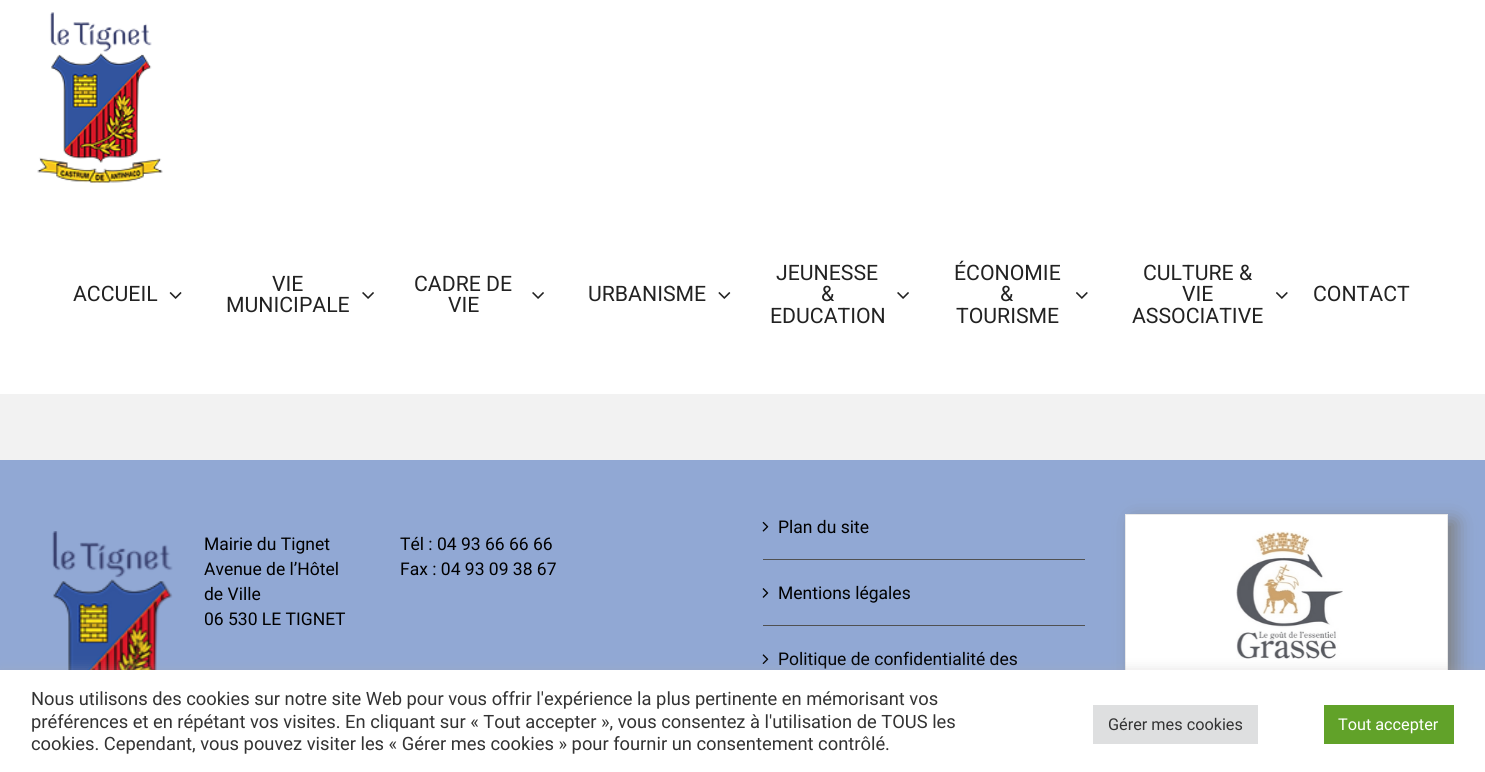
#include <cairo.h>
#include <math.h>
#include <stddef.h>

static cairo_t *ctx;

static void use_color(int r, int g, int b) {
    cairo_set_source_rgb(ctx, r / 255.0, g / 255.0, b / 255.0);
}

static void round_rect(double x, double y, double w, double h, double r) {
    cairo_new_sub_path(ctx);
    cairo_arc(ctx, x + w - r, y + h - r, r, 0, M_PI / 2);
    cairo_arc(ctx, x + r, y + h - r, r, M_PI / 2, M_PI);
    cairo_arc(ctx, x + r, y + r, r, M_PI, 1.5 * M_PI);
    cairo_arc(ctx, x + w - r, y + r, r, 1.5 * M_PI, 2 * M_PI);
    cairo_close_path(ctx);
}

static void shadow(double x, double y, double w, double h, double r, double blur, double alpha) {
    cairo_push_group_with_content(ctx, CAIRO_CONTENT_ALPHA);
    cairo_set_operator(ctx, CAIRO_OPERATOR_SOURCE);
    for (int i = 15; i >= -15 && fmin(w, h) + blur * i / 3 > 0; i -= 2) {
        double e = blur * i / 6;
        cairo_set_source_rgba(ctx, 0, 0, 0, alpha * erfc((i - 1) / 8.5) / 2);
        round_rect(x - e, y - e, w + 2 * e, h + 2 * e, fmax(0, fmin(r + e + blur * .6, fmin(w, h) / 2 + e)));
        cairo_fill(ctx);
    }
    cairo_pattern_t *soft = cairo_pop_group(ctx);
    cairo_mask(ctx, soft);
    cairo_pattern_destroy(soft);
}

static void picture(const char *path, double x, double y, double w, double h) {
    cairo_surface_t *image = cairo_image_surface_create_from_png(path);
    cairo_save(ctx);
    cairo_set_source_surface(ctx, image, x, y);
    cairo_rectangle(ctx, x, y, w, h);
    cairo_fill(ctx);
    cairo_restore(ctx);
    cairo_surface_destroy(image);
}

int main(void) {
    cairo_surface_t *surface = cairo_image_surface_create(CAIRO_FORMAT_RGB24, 1485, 772);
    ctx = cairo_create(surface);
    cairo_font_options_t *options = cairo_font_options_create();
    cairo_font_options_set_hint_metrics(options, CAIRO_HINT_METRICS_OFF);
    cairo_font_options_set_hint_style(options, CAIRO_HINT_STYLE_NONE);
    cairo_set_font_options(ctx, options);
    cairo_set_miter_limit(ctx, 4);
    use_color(242, 242, 242);
    cairo_paint(ctx);
    use_color(255, 255, 255);
    cairo_rectangle(ctx, 0, 0, 1485, 394);
    cairo_fill(ctx);
    picture("img1.png", 37, 12, 126, 171);
    cairo_select_font_face(ctx, "Roboto", CAIRO_FONT_SLANT_NORMAL, CAIRO_FONT_WEIGHT_NORMAL);
    cairo_set_font_size(ctx, 21.25);
    use_color(34, 34, 34);
    cairo_move_to(ctx, 73, 301);
    cairo_show_text(ctx, "ACCUEIL");
    picture("img2.png", 169, 292, 13, 7);
    cairo_move_to(ctx, 272, 291);
    cairo_show_text(ctx, "VIE");
    cairo_move_to(ctx, 226, 312);
    cairo_show_text(ctx, "MUNICIPALE");
    picture("img3.png", 362, 292, 12, 7);
    cairo_move_to(ctx, 414, 291);
    cairo_show_text(ctx, "CADRE DE");
    cairo_move_to(ctx, 448, 312);
    cairo_show_text(ctx, "VIE");
    picture("img3.png", 532, 292, 12, 7);
    cairo_move_to(ctx, 588, 301);
    cairo_show_text(ctx, "URBANISME");
    picture("img4.png", 718, 292, 13, 7);
    cairo_move_to(ctx, 776, 280);
    cairo_show_text(ctx, "JEUNESSE");
    cairo_move_to(ctx, 821, 301);
    cairo_show_text(ctx, "&");
    cairo_move_to(ctx, 770, 323);
    cairo_show_text(ctx, "EDUCATION");
    picture("img3.png", 897, 292, 12, 7);
    cairo_move_to(ctx, 954, 280);
    cairo_show_text(ctx, "ÉCONOMIE");
    cairo_move_to(ctx, 1000, 301);
    cairo_show_text(ctx, "&");
    cairo_move_to(ctx, 956, 323);
    cairo_show_text(ctx, "TOURISME");
    picture("img5.png", 1076, 292, 12, 7);
    cairo_move_to(ctx, 1143, 280);
    cairo_show_text(ctx, "CULTURE &");
    cairo_move_to(ctx, 1182, 301);
    cairo_show_text(ctx, "VIE");
    cairo_move_to(ctx, 1132, 323);
    cairo_show_text(ctx, "ASSOCIATIVE");
    picture("img5.png", 1276, 292, 12, 7);
    cairo_move_to(ctx, 1313, 301);
    cairo_show_text(ctx, "CONTACT");
    use_color(145, 168, 212);
    cairo_rectangle(ctx, 0, 460, 1485, 210);
    cairo_fill(ctx);
    picture("img6.png", 52, 531, 121, 139);
    cairo_set_font_size(ctx, 17.5);
    use_color(0, 0, 0);
    cairo_move_to(ctx, 204, 550);
    cairo_show_text(ctx, "Mairie du Tignet");
    cairo_move_to(ctx, 204, 575);
    cairo_show_text(ctx, "Avenue de l’Hôtel");
    cairo_move_to(ctx, 204, 600);
    cairo_show_text(ctx, "de Ville");
    cairo_move_to(ctx, 204, 625);
    cairo_show_text(ctx, "06 530 LE TIGNET");
    cairo_move_to(ctx, 400, 550);
    cairo_show_text(ctx, "Tél : 04 93 66 66 66");
    cairo_move_to(ctx, 400, 575);
    cairo_show_text(ctx, "Fax : 04 93 09 38 67");
    use_color(80, 81, 82);
    cairo_rectangle(ctx, 763, 559, 322, 1);
    cairo_fill(ctx);
    picture("img7.png", 762, 521, 7, 11);
    use_color(0, 0, 0);
    cairo_move_to(ctx, 778, 533);
    cairo_show_text(ctx, "Plan du site");
    use_color(80, 81, 82);
    cairo_rectangle(ctx, 763, 625, 322, 1);
    cairo_fill(ctx);
    picture("img8.png", 762, 588, 7, 10);
    use_color(0, 0, 0);
    cairo_move_to(ctx, 778, 599);
    cairo_show_text(ctx, "Mentions légales");
    picture("img9.png", 762, 654, 7, 10);
    cairo_move_to(ctx, 778, 665);
    cairo_show_text(ctx, "Politique de confidentialité des");
    use_color(128, 128, 128);
    shadow(1134, 521, 322, 167, 0, 9.5, 1);
    use_color(255, 255, 255);
    cairo_rectangle(ctx, 1126, 515, 321, 155);
    cairo_fill(ctx);
    cairo_rectangle(ctx, 1125.5, 514.5, 322, 165);
    use_color(233, 233, 233);
    cairo_set_line_width(ctx, 1);
    cairo_stroke(ctx);
    picture("img10.png", 1236, 531, 107, 128);
    use_color(172, 171, 171);
    shadow(0, 669, 1485, 102, 0, 6, 0.3);
    use_color(255, 255, 255);
    cairo_rectangle(ctx, 0, 670, 1485, 102);
    cairo_fill(ctx);
    cairo_set_font_size(ctx, 18.33);
    use_color(51, 51, 51);
    cairo_move_to(ctx, 31, 705);
    cairo_show_text(ctx, "Nous utilisons des cookies sur notre site Web pour vous offrir l'expérience la plus pertinente en mémorisant vos");
    cairo_move_to(ctx, 31, 728);
    cairo_show_text(ctx, "préférences et en répétant vos visites. En cliquant sur « Tout accepter », vous consentez à l'utilisation de TOUS les");
    cairo_move_to(ctx, 31, 750);
    cairo_show_text(ctx, "cookies. Cependant, vous pouvez visiter les « Gérer mes cookies » pour fournir un consentement contrôlé.");
    use_color(222, 223, 224);
    cairo_rectangle(ctx, 1093, 705, 165, 39);
    cairo_fill(ctx);
    cairo_set_font_size(ctx, 16.25);
    use_color(51, 51, 51);
    cairo_move_to(ctx, 1108, 730);
    cairo_show_text(ctx, "Gérer mes cookies");
    use_color(97, 162, 41);
    cairo_rectangle(ctx, 1324, 705, 130, 39);
    cairo_fill(ctx);
    use_color(255, 255, 255);
    cairo_move_to(ctx, 1338, 730);
    cairo_show_text(ctx, "Tout accepter");
    cairo_surface_write_to_png(surface, "result.png");
    cairo_font_options_destroy(options);
    cairo_destroy(ctx);
    cairo_surface_destroy(surface);
    return 0;
}
